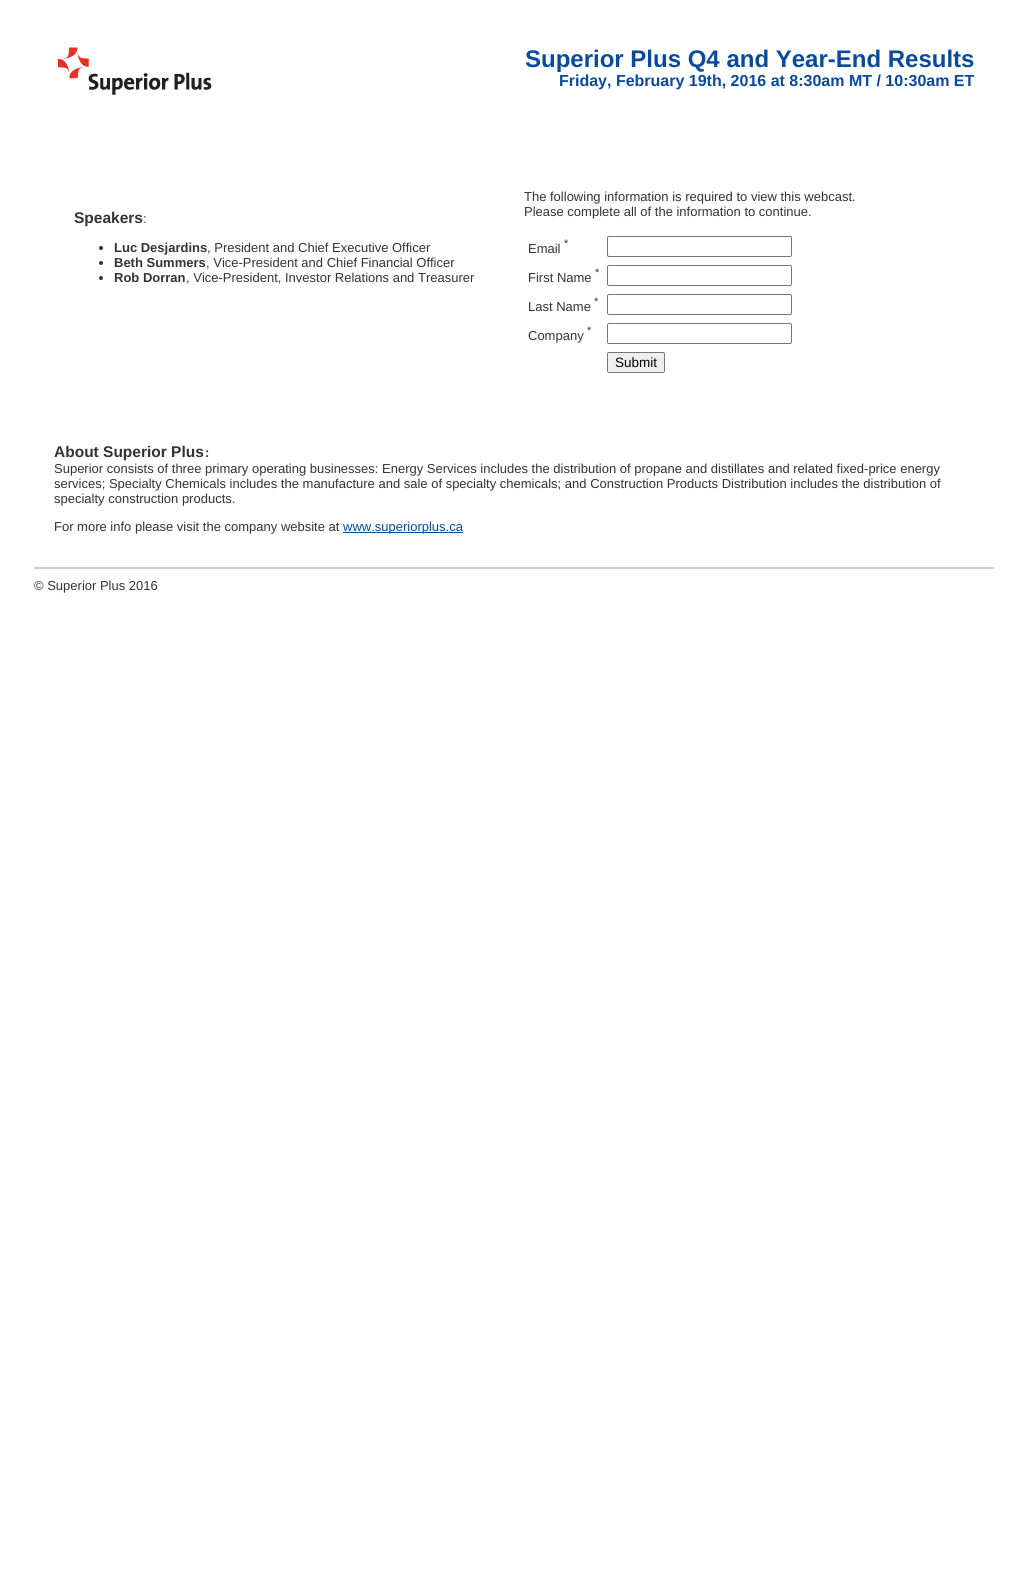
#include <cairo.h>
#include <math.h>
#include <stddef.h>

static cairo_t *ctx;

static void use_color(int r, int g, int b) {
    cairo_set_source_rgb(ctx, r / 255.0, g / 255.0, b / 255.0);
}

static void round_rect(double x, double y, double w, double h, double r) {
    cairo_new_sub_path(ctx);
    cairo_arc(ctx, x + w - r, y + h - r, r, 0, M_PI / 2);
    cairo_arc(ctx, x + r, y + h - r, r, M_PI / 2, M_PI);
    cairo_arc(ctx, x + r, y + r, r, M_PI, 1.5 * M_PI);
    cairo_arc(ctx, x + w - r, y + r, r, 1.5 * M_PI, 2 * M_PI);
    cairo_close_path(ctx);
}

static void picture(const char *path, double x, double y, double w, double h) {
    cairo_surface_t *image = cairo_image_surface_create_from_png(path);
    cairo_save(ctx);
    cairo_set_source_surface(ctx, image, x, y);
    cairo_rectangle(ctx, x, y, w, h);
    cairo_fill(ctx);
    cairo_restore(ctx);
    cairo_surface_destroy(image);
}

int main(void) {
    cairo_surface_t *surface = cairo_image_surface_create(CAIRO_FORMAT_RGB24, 1028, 1572);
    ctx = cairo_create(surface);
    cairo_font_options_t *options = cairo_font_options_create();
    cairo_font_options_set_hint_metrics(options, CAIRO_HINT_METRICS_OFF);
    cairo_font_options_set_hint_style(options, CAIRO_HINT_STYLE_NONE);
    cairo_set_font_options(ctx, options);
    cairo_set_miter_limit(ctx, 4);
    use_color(255, 255, 255);
    cairo_paint(ctx);
    picture("img1.png", 58, 47, 154, 48);
    cairo_select_font_face(ctx, "Liberation Sans", CAIRO_FONT_SLANT_NORMAL, CAIRO_FONT_WEIGHT_BOLD);
    cairo_set_font_size(ctx, 24);
    use_color(9, 74, 159);
    cairo_move_to(ctx, 525, 67);
    cairo_show_text(ctx, "Superior Plus Q4 and Year-End Results");
    cairo_set_font_size(ctx, 16);
    cairo_move_to(ctx, 559, 86);
    cairo_show_text(ctx, "Friday, February 19th, 2016 at 8:30am MT / 10:30am ET");
    cairo_set_font_size(ctx, 15.5);
    use_color(51, 51, 51);
    cairo_move_to(ctx, 74, 223);
    cairo_show_text(ctx, "Speakers");
    cairo_select_font_face(ctx, "Liberation Sans", CAIRO_FONT_SLANT_NORMAL, CAIRO_FONT_WEIGHT_NORMAL);
    cairo_set_font_size(ctx, 13);
    cairo_move_to(ctx, 143, 223);
    cairo_show_text(ctx, ":");
    cairo_new_path(ctx);
    cairo_arc(ctx, 101, 248, 2, 0, 2 * M_PI);
    cairo_fill(ctx);
    cairo_select_font_face(ctx, "Liberation Sans", CAIRO_FONT_SLANT_NORMAL, CAIRO_FONT_WEIGHT_BOLD);
    cairo_move_to(ctx, 114, 252);
    cairo_show_text(ctx, "Luc Desjardins");
    cairo_select_font_face(ctx, "Liberation Sans", CAIRO_FONT_SLANT_NORMAL, CAIRO_FONT_WEIGHT_NORMAL);
    cairo_move_to(ctx, 207, 252);
    cairo_show_text(ctx, ", President and Chief Executive Officer");
    cairo_new_path(ctx);
    cairo_arc(ctx, 101, 263, 2, 0, 2 * M_PI);
    cairo_fill(ctx);
    cairo_select_font_face(ctx, "Liberation Sans", CAIRO_FONT_SLANT_NORMAL, CAIRO_FONT_WEIGHT_BOLD);
    cairo_move_to(ctx, 114, 267);
    cairo_show_text(ctx, "Beth Summers");
    cairo_select_font_face(ctx, "Liberation Sans", CAIRO_FONT_SLANT_NORMAL, CAIRO_FONT_WEIGHT_NORMAL);
    cairo_move_to(ctx, 206, 267);
    cairo_show_text(ctx, ", Vice-President and Chief Financial Officer");
    cairo_new_path(ctx);
    cairo_arc(ctx, 101, 278, 2, 0, 2 * M_PI);
    cairo_fill(ctx);
    cairo_select_font_face(ctx, "Liberation Sans", CAIRO_FONT_SLANT_NORMAL, CAIRO_FONT_WEIGHT_BOLD);
    cairo_move_to(ctx, 114, 282);
    cairo_show_text(ctx, "Rob Dorran");
    cairo_select_font_face(ctx, "Liberation Sans", CAIRO_FONT_SLANT_NORMAL, CAIRO_FONT_WEIGHT_NORMAL);
    cairo_move_to(ctx, 186, 282);
    cairo_show_text(ctx, ", Vice-President, Investor Relations and Treasurer");
    cairo_move_to(ctx, 524, 201);
    cairo_show_text(ctx, "The following information is required to view this webcast.");
    cairo_move_to(ctx, 524, 216);
    cairo_show_text(ctx, "Please complete all of the information to continue.");
    cairo_set_font_size(ctx, 11);
    cairo_move_to(ctx, 564, 247);
    cairo_show_text(ctx, "*");
    cairo_set_font_size(ctx, 13);
    cairo_move_to(ctx, 528, 253);
    cairo_show_text(ctx, "Email");
    round_rect(607.5, 236.5, 184, 20, 1.5);
    use_color(118, 118, 118);
    cairo_set_line_width(ctx, 1);
    cairo_stroke(ctx);
    cairo_set_font_size(ctx, 11);
    use_color(51, 51, 51);
    cairo_move_to(ctx, 595, 276);
    cairo_show_text(ctx, "*");
    cairo_set_font_size(ctx, 13);
    cairo_move_to(ctx, 528, 282);
    cairo_show_text(ctx, "First Name");
    round_rect(607.5, 265.5, 184, 20, 1.5);
    use_color(118, 118, 118);
    cairo_stroke(ctx);
    cairo_set_font_size(ctx, 11);
    use_color(51, 51, 51);
    cairo_move_to(ctx, 594, 305);
    cairo_show_text(ctx, "*");
    cairo_set_font_size(ctx, 13);
    cairo_move_to(ctx, 528, 311);
    cairo_show_text(ctx, "Last Name");
    round_rect(607.5, 294.5, 184, 20, 1.5);
    use_color(118, 118, 118);
    cairo_stroke(ctx);
    cairo_set_font_size(ctx, 11);
    use_color(51, 51, 51);
    cairo_move_to(ctx, 587, 334);
    cairo_show_text(ctx, "*");
    cairo_set_font_size(ctx, 13);
    cairo_move_to(ctx, 528, 340);
    cairo_show_text(ctx, "Company");
    round_rect(607.5, 323.5, 184, 20, 1.5);
    use_color(118, 118, 118);
    cairo_stroke(ctx);
    use_color(239, 239, 239);
    round_rect(607.5, 352.5, 57, 20, 1.5);
    cairo_fill_preserve(ctx);
    use_color(118, 118, 118);
    cairo_stroke(ctx);
    cairo_set_font_size(ctx, 13.5);
    use_color(0, 0, 0);
    cairo_move_to(ctx, 615, 367);
    cairo_show_text(ctx, "Submit");
    cairo_select_font_face(ctx, "Liberation Sans", CAIRO_FONT_SLANT_NORMAL, CAIRO_FONT_WEIGHT_BOLD);
    cairo_set_font_size(ctx, 15.5);
    use_color(51, 51, 51);
    cairo_move_to(ctx, 54, 457);
    cairo_show_text(ctx, "About Superior Plus");
    cairo_set_font_size(ctx, 13);
    cairo_move_to(ctx, 205, 457);
    cairo_show_text(ctx, ":");
    cairo_select_font_face(ctx, "Liberation Sans", CAIRO_FONT_SLANT_NORMAL, CAIRO_FONT_WEIGHT_NORMAL);
    cairo_move_to(ctx, 54, 473);
    cairo_show_text(ctx, "Superior consists of three primary operating businesses: Energy Services includes the distribution of propane and distillates and related fixed-price energy");
    cairo_move_to(ctx, 54, 488);
    cairo_show_text(ctx, "services; Specialty Chemicals includes the manufacture and sale of specialty chemicals; and Construction Products Distribution includes the distribution of");
    cairo_move_to(ctx, 54, 503);
    cairo_show_text(ctx, "specialty construction products.");
    cairo_move_to(ctx, 54, 531);
    cairo_show_text(ctx, "For more info please visit the company website at");
    use_color(9, 74, 159);
    cairo_rectangle(ctx, 343, 532, 120, 1);
    cairo_fill(ctx);
    cairo_move_to(ctx, 343, 531);
    cairo_show_text(ctx, "www.superiorplus.ca");
    use_color(204, 204, 204);
    cairo_rectangle(ctx, 34, 567, 960, 2);
    cairo_fill(ctx);
    use_color(51, 51, 51);
    cairo_move_to(ctx, 34, 590);
    cairo_show_text(ctx, "© Superior Plus 2016");
    cairo_surface_write_to_png(surface, "result.png");
    cairo_font_options_destroy(options);
    cairo_destroy(ctx);
    cairo_surface_destroy(surface);
    return 0;
}
